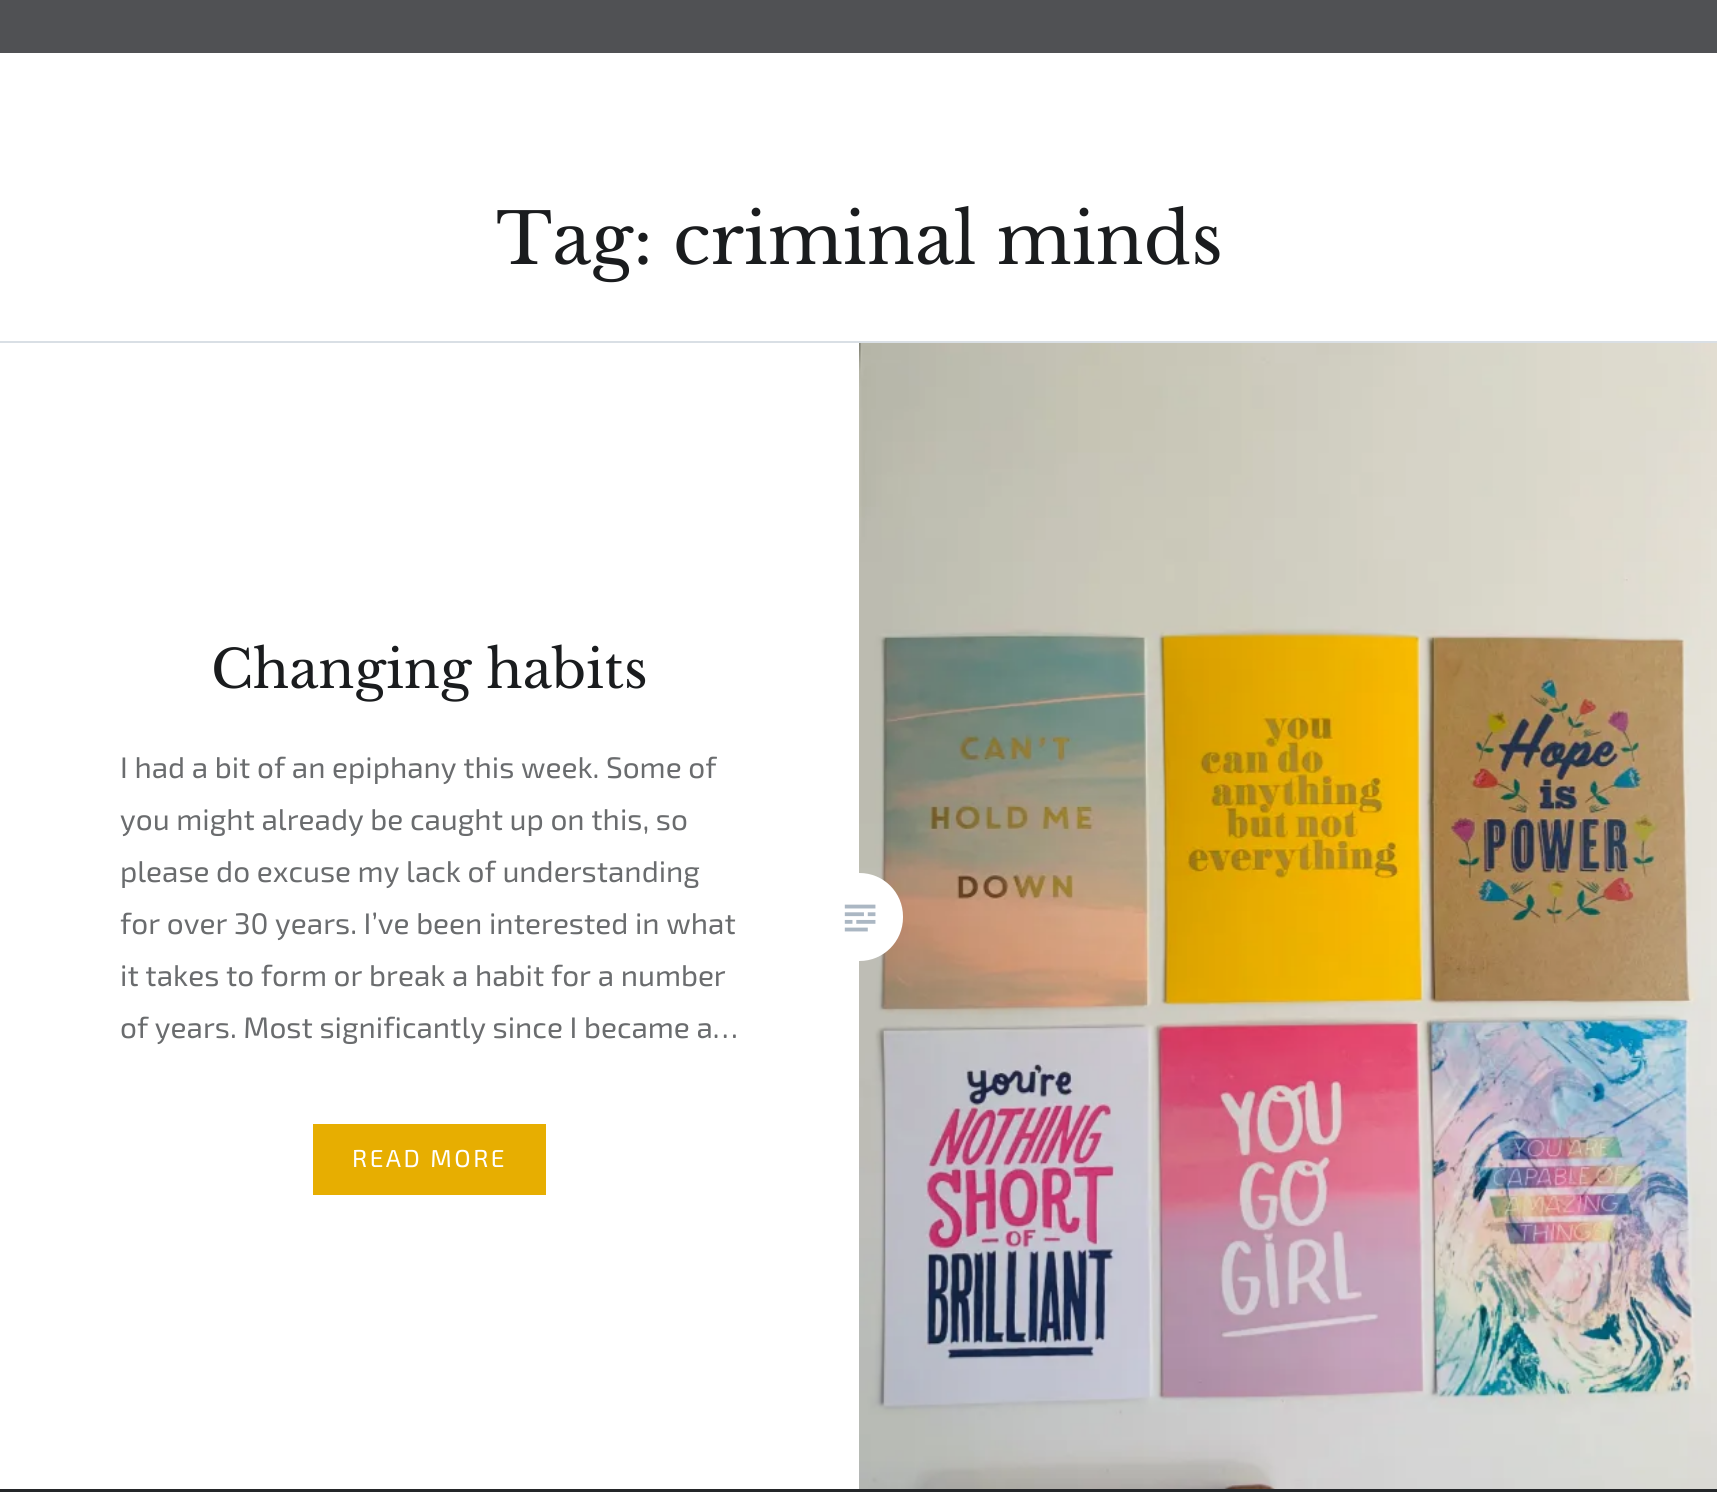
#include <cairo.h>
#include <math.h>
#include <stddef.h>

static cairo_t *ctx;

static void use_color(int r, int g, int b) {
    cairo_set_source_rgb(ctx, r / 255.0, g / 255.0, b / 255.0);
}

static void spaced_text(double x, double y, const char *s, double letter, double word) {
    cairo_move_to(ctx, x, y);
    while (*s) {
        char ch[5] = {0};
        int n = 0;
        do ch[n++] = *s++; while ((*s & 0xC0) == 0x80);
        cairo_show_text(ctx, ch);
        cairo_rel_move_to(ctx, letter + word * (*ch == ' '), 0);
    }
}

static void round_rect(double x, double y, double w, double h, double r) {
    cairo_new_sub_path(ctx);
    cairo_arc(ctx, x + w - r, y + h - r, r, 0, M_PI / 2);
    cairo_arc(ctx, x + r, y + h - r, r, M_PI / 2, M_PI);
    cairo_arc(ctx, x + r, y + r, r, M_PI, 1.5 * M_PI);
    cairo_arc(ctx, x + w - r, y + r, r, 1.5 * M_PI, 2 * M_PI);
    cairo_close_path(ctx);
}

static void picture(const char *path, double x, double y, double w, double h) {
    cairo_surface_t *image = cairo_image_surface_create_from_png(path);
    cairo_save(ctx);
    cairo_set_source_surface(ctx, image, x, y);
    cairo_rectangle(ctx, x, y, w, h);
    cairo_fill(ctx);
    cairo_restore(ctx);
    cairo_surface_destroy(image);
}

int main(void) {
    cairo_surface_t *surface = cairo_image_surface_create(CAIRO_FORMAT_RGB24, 1717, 1492);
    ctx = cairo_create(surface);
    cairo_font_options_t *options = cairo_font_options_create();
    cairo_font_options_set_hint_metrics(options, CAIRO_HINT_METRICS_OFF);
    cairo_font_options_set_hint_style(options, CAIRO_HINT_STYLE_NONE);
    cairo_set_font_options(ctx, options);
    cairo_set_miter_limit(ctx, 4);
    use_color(255, 255, 255);
    cairo_paint(ctx);
    use_color(80, 81, 84);
    cairo_rectangle(ctx, 0, 0, 1717, 53);
    cairo_fill(ctx);
    use_color(217, 223, 229);
    cairo_rectangle(ctx, 0, 341, 1717, 2);
    cairo_fill(ctx);
    cairo_select_font_face(ctx, "Libre Baskerville", CAIRO_FONT_SLANT_NORMAL, CAIRO_FONT_WEIGHT_NORMAL);
    cairo_set_font_size(ctx, 70);
    use_color(26, 28, 30);
    cairo_move_to(ctx, 496, 264);
    cairo_show_text(ctx, "Tag: criminal minds");
    cairo_set_font_size(ctx, 52.5);
    cairo_move_to(ctx, 211, 688);
    cairo_show_text(ctx, "Changing habits");
    cairo_select_font_face(ctx, "Exo 2", CAIRO_FONT_SLANT_NORMAL, CAIRO_FONT_WEIGHT_NORMAL);
    cairo_set_font_size(ctx, 29.75);
    use_color(106, 108, 110);
    cairo_move_to(ctx, 120, 778);
    cairo_show_text(ctx, "I had a bit of an epiphany this week. Some of");
    cairo_move_to(ctx, 120, 830);
    cairo_show_text(ctx, "you might already be caught up on this, so");
    cairo_move_to(ctx, 120, 882);
    cairo_show_text(ctx, "please do excuse my lack of understanding");
    cairo_move_to(ctx, 120, 934);
    cairo_show_text(ctx, "for over 30 years. I’ve been interested in what");
    cairo_move_to(ctx, 120, 986);
    cairo_show_text(ctx, "it takes to form or break a habit for a number");
    cairo_move_to(ctx, 120, 1038);
    cairo_show_text(ctx, "of years. Most significantly since I became a…");
    use_color(231, 174, 1);
    cairo_rectangle(ctx, 313, 1124, 233, 71);
    cairo_fill(ctx);
    cairo_set_font_size(ctx, 24.5);
    use_color(255, 255, 255);
    spaced_text(352, 1167, "READ MORE", 2.5, 0);
    picture("img2.png", 859, 343, 858, 1146);
    round_rect(816, 873, 87, 88, 43.5);
    cairo_fill(ctx);
    picture("img1.png", 844, 904, 32, 28);
    use_color(36, 38, 41);
    cairo_rectangle(ctx, 0, 1489, 1717, 3);
    cairo_fill(ctx);
    cairo_surface_write_to_png(surface, "result.png");
    cairo_font_options_destroy(options);
    cairo_destroy(ctx);
    cairo_surface_destroy(surface);
    return 0;
}
